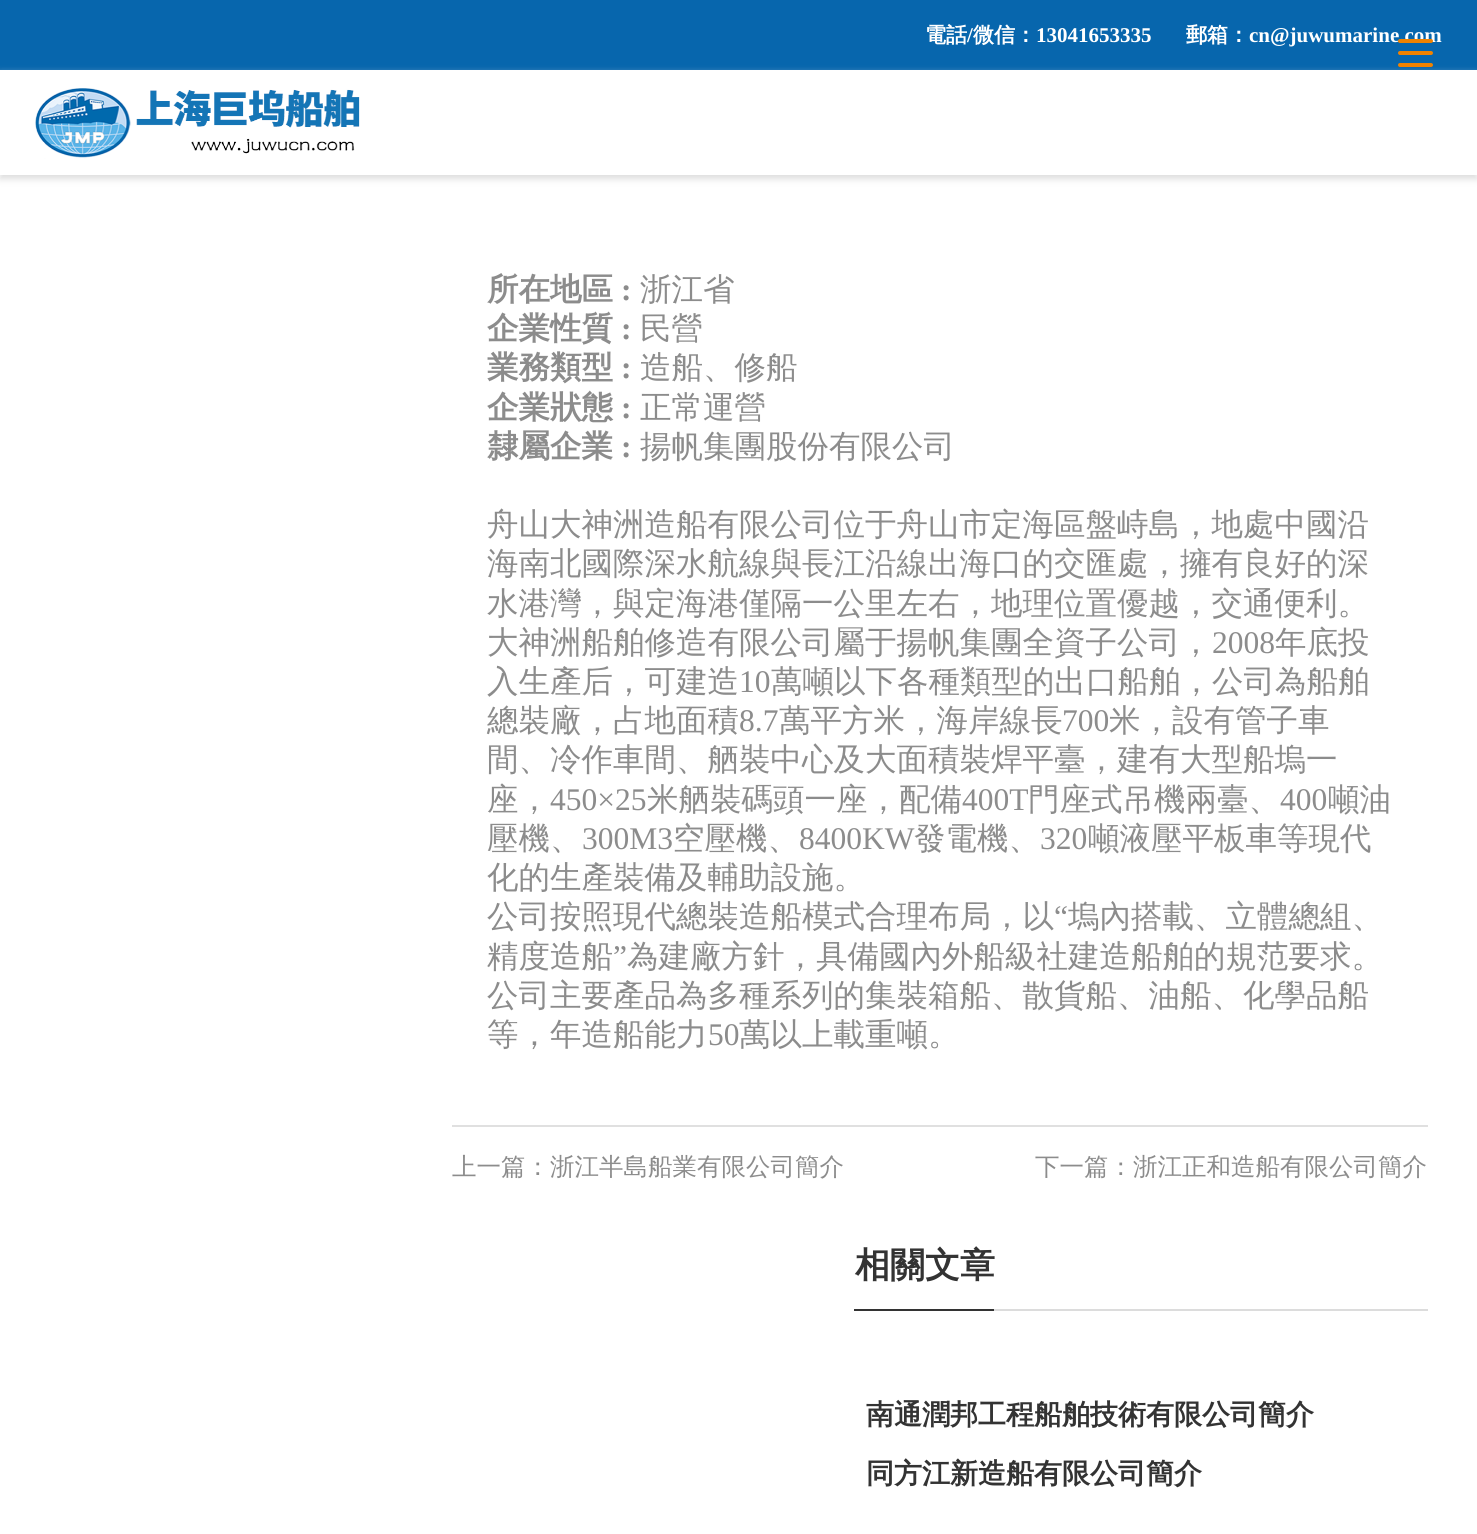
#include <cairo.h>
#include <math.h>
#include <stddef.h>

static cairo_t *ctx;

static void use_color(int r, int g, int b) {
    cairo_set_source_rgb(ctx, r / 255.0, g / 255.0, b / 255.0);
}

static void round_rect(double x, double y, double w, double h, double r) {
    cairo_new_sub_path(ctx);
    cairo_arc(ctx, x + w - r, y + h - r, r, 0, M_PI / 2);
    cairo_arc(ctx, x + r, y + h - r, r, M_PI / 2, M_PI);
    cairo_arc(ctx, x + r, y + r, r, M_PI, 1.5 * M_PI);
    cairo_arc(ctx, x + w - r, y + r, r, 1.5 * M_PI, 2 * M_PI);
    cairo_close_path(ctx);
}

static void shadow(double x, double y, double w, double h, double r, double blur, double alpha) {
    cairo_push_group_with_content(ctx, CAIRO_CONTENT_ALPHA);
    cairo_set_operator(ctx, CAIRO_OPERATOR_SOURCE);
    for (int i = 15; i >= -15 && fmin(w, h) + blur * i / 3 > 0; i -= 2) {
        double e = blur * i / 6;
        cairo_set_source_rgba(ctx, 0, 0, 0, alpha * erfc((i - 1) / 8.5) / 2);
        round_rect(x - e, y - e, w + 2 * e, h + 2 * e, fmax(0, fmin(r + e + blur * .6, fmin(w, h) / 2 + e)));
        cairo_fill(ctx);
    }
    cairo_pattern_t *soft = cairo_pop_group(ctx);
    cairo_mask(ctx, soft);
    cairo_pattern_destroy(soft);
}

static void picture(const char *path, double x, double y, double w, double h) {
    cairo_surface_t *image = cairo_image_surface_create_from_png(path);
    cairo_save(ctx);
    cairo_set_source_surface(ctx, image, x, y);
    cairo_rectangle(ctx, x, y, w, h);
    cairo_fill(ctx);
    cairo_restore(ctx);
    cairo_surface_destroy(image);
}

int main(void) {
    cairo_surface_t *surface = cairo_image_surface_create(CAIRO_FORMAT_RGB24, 1477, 1534);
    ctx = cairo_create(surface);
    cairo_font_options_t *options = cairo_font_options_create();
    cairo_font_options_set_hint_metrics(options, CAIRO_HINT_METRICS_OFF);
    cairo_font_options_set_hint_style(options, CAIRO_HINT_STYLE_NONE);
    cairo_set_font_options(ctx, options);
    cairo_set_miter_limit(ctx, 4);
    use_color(255, 255, 255);
    cairo_paint(ctx);
    use_color(7, 102, 173);
    cairo_rectangle(ctx, 0, 0, 1477, 70);
    cairo_fill(ctx);
    cairo_select_font_face(ctx, "WenQuanYi Zen Hei", CAIRO_FONT_SLANT_NORMAL, CAIRO_FONT_WEIGHT_BOLD);
    cairo_set_font_size(ctx, 21);
    use_color(255, 255, 255);
    cairo_move_to(ctx, 925, 42);
    cairo_show_text(ctx, "電話");
    cairo_select_font_face(ctx, "Liberation Serif", CAIRO_FONT_SLANT_NORMAL, CAIRO_FONT_WEIGHT_BOLD);
    cairo_move_to(ctx, 967, 42);
    cairo_show_text(ctx, "/");
    cairo_select_font_face(ctx, "WenQuanYi Zen Hei", CAIRO_FONT_SLANT_NORMAL, CAIRO_FONT_WEIGHT_BOLD);
    cairo_move_to(ctx, 973, 42);
    cairo_show_text(ctx, "微信：");
    cairo_select_font_face(ctx, "Liberation Serif", CAIRO_FONT_SLANT_NORMAL, CAIRO_FONT_WEIGHT_BOLD);
    cairo_move_to(ctx, 1036, 42);
    cairo_show_text(ctx, "13041653335");
    cairo_select_font_face(ctx, "WenQuanYi Zen Hei", CAIRO_FONT_SLANT_NORMAL, CAIRO_FONT_WEIGHT_BOLD);
    cairo_move_to(ctx, 1186, 42);
    cairo_show_text(ctx, "郵箱：");
    cairo_select_font_face(ctx, "Liberation Serif", CAIRO_FONT_SLANT_NORMAL, CAIRO_FONT_WEIGHT_BOLD);
    cairo_move_to(ctx, 1249, 42);
    cairo_show_text(ctx, "cn@juwumarine.com");
    use_color(240, 130, 0);
    round_rect(1398, 39, 35, 4, 2);
    cairo_fill(ctx);
    round_rect(1398, 51, 35, 4, 2);
    cairo_fill(ctx);
    use_color(221, 221, 221);
    shadow(0, 74, 1477, 105, 0, 3.5, 1);
    use_color(240, 130, 0);
    round_rect(1398, 63, 35, 4, 2);
    cairo_fill(ctx);
    use_color(255, 255, 255);
    cairo_rectangle(ctx, 0, 70, 1477, 105);
    cairo_fill(ctx);
    picture("img1.png", 35, 88, 325, 71);
    cairo_select_font_face(ctx, "WenQuanYi Zen Hei", CAIRO_FONT_SLANT_NORMAL, CAIRO_FONT_WEIGHT_BOLD);
    cairo_set_font_size(ctx, 31.5);
    use_color(140, 140, 140);
    cairo_move_to(ctx, 487, 300);
    cairo_show_text(ctx, "所在地區");
    cairo_select_font_face(ctx, "Liberation Serif", CAIRO_FONT_SLANT_NORMAL, CAIRO_FONT_WEIGHT_BOLD);
    cairo_move_to(ctx, 621, 300);
    cairo_show_text(ctx, ":");
    cairo_select_font_face(ctx, "WenQuanYi Zen Hei Medium", CAIRO_FONT_SLANT_NORMAL, CAIRO_FONT_WEIGHT_NORMAL);
    cairo_move_to(ctx, 640, 300);
    cairo_show_text(ctx, "浙江省");
    cairo_select_font_face(ctx, "WenQuanYi Zen Hei", CAIRO_FONT_SLANT_NORMAL, CAIRO_FONT_WEIGHT_BOLD);
    cairo_move_to(ctx, 487, 339);
    cairo_show_text(ctx, "企業性質");
    cairo_select_font_face(ctx, "Liberation Serif", CAIRO_FONT_SLANT_NORMAL, CAIRO_FONT_WEIGHT_BOLD);
    cairo_move_to(ctx, 621, 339);
    cairo_show_text(ctx, ":");
    cairo_select_font_face(ctx, "WenQuanYi Zen Hei Medium", CAIRO_FONT_SLANT_NORMAL, CAIRO_FONT_WEIGHT_NORMAL);
    cairo_move_to(ctx, 640, 339);
    cairo_show_text(ctx, "民營");
    cairo_select_font_face(ctx, "WenQuanYi Zen Hei", CAIRO_FONT_SLANT_NORMAL, CAIRO_FONT_WEIGHT_BOLD);
    cairo_move_to(ctx, 487, 378);
    cairo_show_text(ctx, "業務類型");
    cairo_select_font_face(ctx, "Liberation Serif", CAIRO_FONT_SLANT_NORMAL, CAIRO_FONT_WEIGHT_BOLD);
    cairo_move_to(ctx, 621, 378);
    cairo_show_text(ctx, ":");
    cairo_select_font_face(ctx, "WenQuanYi Zen Hei Medium", CAIRO_FONT_SLANT_NORMAL, CAIRO_FONT_WEIGHT_NORMAL);
    cairo_move_to(ctx, 640, 378);
    cairo_show_text(ctx, "造船、修船");
    cairo_select_font_face(ctx, "WenQuanYi Zen Hei", CAIRO_FONT_SLANT_NORMAL, CAIRO_FONT_WEIGHT_BOLD);
    cairo_move_to(ctx, 487, 418);
    cairo_show_text(ctx, "企業狀態");
    cairo_select_font_face(ctx, "Liberation Serif", CAIRO_FONT_SLANT_NORMAL, CAIRO_FONT_WEIGHT_BOLD);
    cairo_move_to(ctx, 621, 418);
    cairo_show_text(ctx, ":");
    cairo_select_font_face(ctx, "WenQuanYi Zen Hei Medium", CAIRO_FONT_SLANT_NORMAL, CAIRO_FONT_WEIGHT_NORMAL);
    cairo_move_to(ctx, 640, 418);
    cairo_show_text(ctx, "正常運營");
    cairo_select_font_face(ctx, "WenQuanYi Zen Hei", CAIRO_FONT_SLANT_NORMAL, CAIRO_FONT_WEIGHT_BOLD);
    cairo_move_to(ctx, 487, 457);
    cairo_show_text(ctx, "隸屬企業");
    cairo_select_font_face(ctx, "Liberation Serif", CAIRO_FONT_SLANT_NORMAL, CAIRO_FONT_WEIGHT_BOLD);
    cairo_move_to(ctx, 621, 457);
    cairo_show_text(ctx, ":");
    cairo_select_font_face(ctx, "WenQuanYi Zen Hei Medium", CAIRO_FONT_SLANT_NORMAL, CAIRO_FONT_WEIGHT_NORMAL);
    cairo_move_to(ctx, 640, 457);
    cairo_show_text(ctx, "揚帆集團股份有限公司");
    cairo_move_to(ctx, 487, 535);
    cairo_show_text(ctx, "舟山大神洲造船有限公司位于舟山市定海區盤峙島，地處中國沿");
    cairo_move_to(ctx, 487, 574);
    cairo_show_text(ctx, "海南北國際深水航線與長江沿線出海口的交匯處，擁有良好的深");
    cairo_move_to(ctx, 487, 614);
    cairo_show_text(ctx, "水港灣，與定海港僅隔一公里左右，地理位置優越，交通便利。");
    cairo_move_to(ctx, 487, 653);
    cairo_show_text(ctx, "大神洲船舶修造有限公司屬于揚帆集團全資子公司，");
    cairo_select_font_face(ctx, "Liberation Serif", CAIRO_FONT_SLANT_NORMAL, CAIRO_FONT_WEIGHT_NORMAL);
    cairo_move_to(ctx, 1212, 653);
    cairo_show_text(ctx, "2008");
    cairo_select_font_face(ctx, "WenQuanYi Zen Hei Medium", CAIRO_FONT_SLANT_NORMAL, CAIRO_FONT_WEIGHT_NORMAL);
    cairo_move_to(ctx, 1275, 653);
    cairo_show_text(ctx, "年底投");
    cairo_move_to(ctx, 487, 692);
    cairo_show_text(ctx, "入生產后，可建造");
    cairo_select_font_face(ctx, "Liberation Serif", CAIRO_FONT_SLANT_NORMAL, CAIRO_FONT_WEIGHT_NORMAL);
    cairo_move_to(ctx, 739, 692);
    cairo_show_text(ctx, "10");
    cairo_select_font_face(ctx, "WenQuanYi Zen Hei Medium", CAIRO_FONT_SLANT_NORMAL, CAIRO_FONT_WEIGHT_NORMAL);
    cairo_move_to(ctx, 771, 692);
    cairo_show_text(ctx, "萬噸以下各種類型的出口船舶，公司為船舶");
    cairo_move_to(ctx, 487, 731);
    cairo_show_text(ctx, "總裝廠，占地面積");
    cairo_select_font_face(ctx, "Liberation Serif", CAIRO_FONT_SLANT_NORMAL, CAIRO_FONT_WEIGHT_NORMAL);
    cairo_move_to(ctx, 739, 731);
    cairo_show_text(ctx, "8.7");
    cairo_select_font_face(ctx, "WenQuanYi Zen Hei Medium", CAIRO_FONT_SLANT_NORMAL, CAIRO_FONT_WEIGHT_NORMAL);
    cairo_move_to(ctx, 779, 731);
    cairo_show_text(ctx, "萬平方米，海岸線長");
    cairo_select_font_face(ctx, "Liberation Serif", CAIRO_FONT_SLANT_NORMAL, CAIRO_FONT_WEIGHT_NORMAL);
    cairo_move_to(ctx, 1062, 731);
    cairo_show_text(ctx, "700");
    cairo_select_font_face(ctx, "WenQuanYi Zen Hei Medium", CAIRO_FONT_SLANT_NORMAL, CAIRO_FONT_WEIGHT_NORMAL);
    cairo_move_to(ctx, 1109, 731);
    cairo_show_text(ctx, "米，設有管子車");
    cairo_move_to(ctx, 487, 770);
    cairo_show_text(ctx, "間、冷作車間、舾裝中心及大面積裝焊平臺，建有大型船塢一");
    cairo_move_to(ctx, 487, 810);
    cairo_show_text(ctx, "座，");
    cairo_select_font_face(ctx, "Liberation Serif", CAIRO_FONT_SLANT_NORMAL, CAIRO_FONT_WEIGHT_NORMAL);
    cairo_move_to(ctx, 550, 810);
    cairo_show_text(ctx, "450×25");
    cairo_select_font_face(ctx, "WenQuanYi Zen Hei Medium", CAIRO_FONT_SLANT_NORMAL, CAIRO_FONT_WEIGHT_NORMAL);
    cairo_move_to(ctx, 647, 810);
    cairo_show_text(ctx, "米舾裝碼頭一座，配備");
    cairo_select_font_face(ctx, "Liberation Serif", CAIRO_FONT_SLANT_NORMAL, CAIRO_FONT_WEIGHT_NORMAL);
    cairo_move_to(ctx, 962, 810);
    cairo_show_text(ctx, "400T");
    cairo_select_font_face(ctx, "WenQuanYi Zen Hei Medium", CAIRO_FONT_SLANT_NORMAL, CAIRO_FONT_WEIGHT_NORMAL);
    cairo_move_to(ctx, 1028, 810);
    cairo_show_text(ctx, "門座式吊機兩臺、");
    cairo_select_font_face(ctx, "Liberation Serif", CAIRO_FONT_SLANT_NORMAL, CAIRO_FONT_WEIGHT_NORMAL);
    cairo_move_to(ctx, 1280, 810);
    cairo_show_text(ctx, "400");
    cairo_select_font_face(ctx, "WenQuanYi Zen Hei Medium", CAIRO_FONT_SLANT_NORMAL, CAIRO_FONT_WEIGHT_NORMAL);
    cairo_move_to(ctx, 1328, 810);
    cairo_show_text(ctx, "噸油");
    cairo_move_to(ctx, 487, 849);
    cairo_show_text(ctx, "壓機、");
    cairo_select_font_face(ctx, "Liberation Serif", CAIRO_FONT_SLANT_NORMAL, CAIRO_FONT_WEIGHT_NORMAL);
    cairo_move_to(ctx, 582, 849);
    cairo_show_text(ctx, "300M3");
    cairo_select_font_face(ctx, "WenQuanYi Zen Hei Medium", CAIRO_FONT_SLANT_NORMAL, CAIRO_FONT_WEIGHT_NORMAL);
    cairo_move_to(ctx, 673, 849);
    cairo_show_text(ctx, "空壓機、");
    cairo_select_font_face(ctx, "Liberation Serif", CAIRO_FONT_SLANT_NORMAL, CAIRO_FONT_WEIGHT_NORMAL);
    cairo_move_to(ctx, 799, 849);
    cairo_show_text(ctx, "8400KW");
    cairo_select_font_face(ctx, "WenQuanYi Zen Hei Medium", CAIRO_FONT_SLANT_NORMAL, CAIRO_FONT_WEIGHT_NORMAL);
    cairo_move_to(ctx, 914, 849);
    cairo_show_text(ctx, "發電機、");
    cairo_select_font_face(ctx, "Liberation Serif", CAIRO_FONT_SLANT_NORMAL, CAIRO_FONT_WEIGHT_NORMAL);
    cairo_move_to(ctx, 1040, 849);
    cairo_show_text(ctx, "320");
    cairo_select_font_face(ctx, "WenQuanYi Zen Hei Medium", CAIRO_FONT_SLANT_NORMAL, CAIRO_FONT_WEIGHT_NORMAL);
    cairo_move_to(ctx, 1088, 849);
    cairo_show_text(ctx, "噸液壓平板車等現代");
    cairo_move_to(ctx, 487, 888);
    cairo_show_text(ctx, "化的生產裝備及輔助設施。");
    cairo_move_to(ctx, 487, 927);
    cairo_show_text(ctx, "公司按照現代總裝造船模式合理布局，以");
    cairo_select_font_face(ctx, "Liberation Serif", CAIRO_FONT_SLANT_NORMAL, CAIRO_FONT_WEIGHT_NORMAL);
    cairo_move_to(ctx, 1054, 927);
    cairo_show_text(ctx, "“");
    cairo_select_font_face(ctx, "WenQuanYi Zen Hei Medium", CAIRO_FONT_SLANT_NORMAL, CAIRO_FONT_WEIGHT_NORMAL);
    cairo_move_to(ctx, 1068, 927);
    cairo_show_text(ctx, "塢內搭載、立體總組、");
    cairo_move_to(ctx, 487, 967);
    cairo_show_text(ctx, "精度造船");
    cairo_select_font_face(ctx, "Liberation Serif", CAIRO_FONT_SLANT_NORMAL, CAIRO_FONT_WEIGHT_NORMAL);
    cairo_move_to(ctx, 613, 967);
    cairo_show_text(ctx, "”");
    cairo_select_font_face(ctx, "WenQuanYi Zen Hei Medium", CAIRO_FONT_SLANT_NORMAL, CAIRO_FONT_WEIGHT_NORMAL);
    cairo_move_to(ctx, 627, 967);
    cairo_show_text(ctx, "為建廠方針，具備國內外船級社建造船舶的規范要求。");
    cairo_move_to(ctx, 487, 1006);
    cairo_show_text(ctx, "公司主要產品為多種系列的集裝箱船、散貨船、油船、化學品船");
    cairo_move_to(ctx, 487, 1045);
    cairo_show_text(ctx, "等，年造船能力");
    cairo_select_font_face(ctx, "Liberation Serif", CAIRO_FONT_SLANT_NORMAL, CAIRO_FONT_WEIGHT_NORMAL);
    cairo_move_to(ctx, 708, 1045);
    cairo_show_text(ctx, "50");
    cairo_select_font_face(ctx, "WenQuanYi Zen Hei Medium", CAIRO_FONT_SLANT_NORMAL, CAIRO_FONT_WEIGHT_NORMAL);
    cairo_move_to(ctx, 739, 1045);
    cairo_show_text(ctx, "萬以上載重噸。");
    use_color(224, 224, 224);
    cairo_rectangle(ctx, 452, 1125, 976, 2);
    cairo_fill(ctx);
    cairo_set_font_size(ctx, 24.5);
    use_color(140, 140, 140);
    cairo_move_to(ctx, 452, 1175);
    cairo_show_text(ctx, "上一篇：浙江半島船業有限公司簡介");
    cairo_move_to(ctx, 1035, 1175);
    cairo_show_text(ctx, "下一篇：浙江正和造船有限公司簡介");
    use_color(220, 220, 220);
    cairo_rectangle(ctx, 994, 1309, 434, 2);
    cairo_fill(ctx);
    cairo_select_font_face(ctx, "WenQuanYi Zen Hei", CAIRO_FONT_SLANT_NORMAL, CAIRO_FONT_WEIGHT_BOLD);
    cairo_set_font_size(ctx, 35);
    use_color(51, 51, 51);
    cairo_move_to(ctx, 855, 1277);
    cairo_show_text(ctx, "相關文章");
    cairo_rectangle(ctx, 854, 1309, 140, 2);
    cairo_fill(ctx);
    cairo_set_font_size(ctx, 28);
    cairo_move_to(ctx, 866, 1424);
    cairo_show_text(ctx, "南通潤邦工程船舶技術有限公司簡介");
    cairo_move_to(ctx, 866, 1483);
    cairo_show_text(ctx, "同方江新造船有限公司簡介");
    cairo_surface_write_to_png(surface, "result.png");
    cairo_font_options_destroy(options);
    cairo_destroy(ctx);
    cairo_surface_destroy(surface);
    return 0;
}
